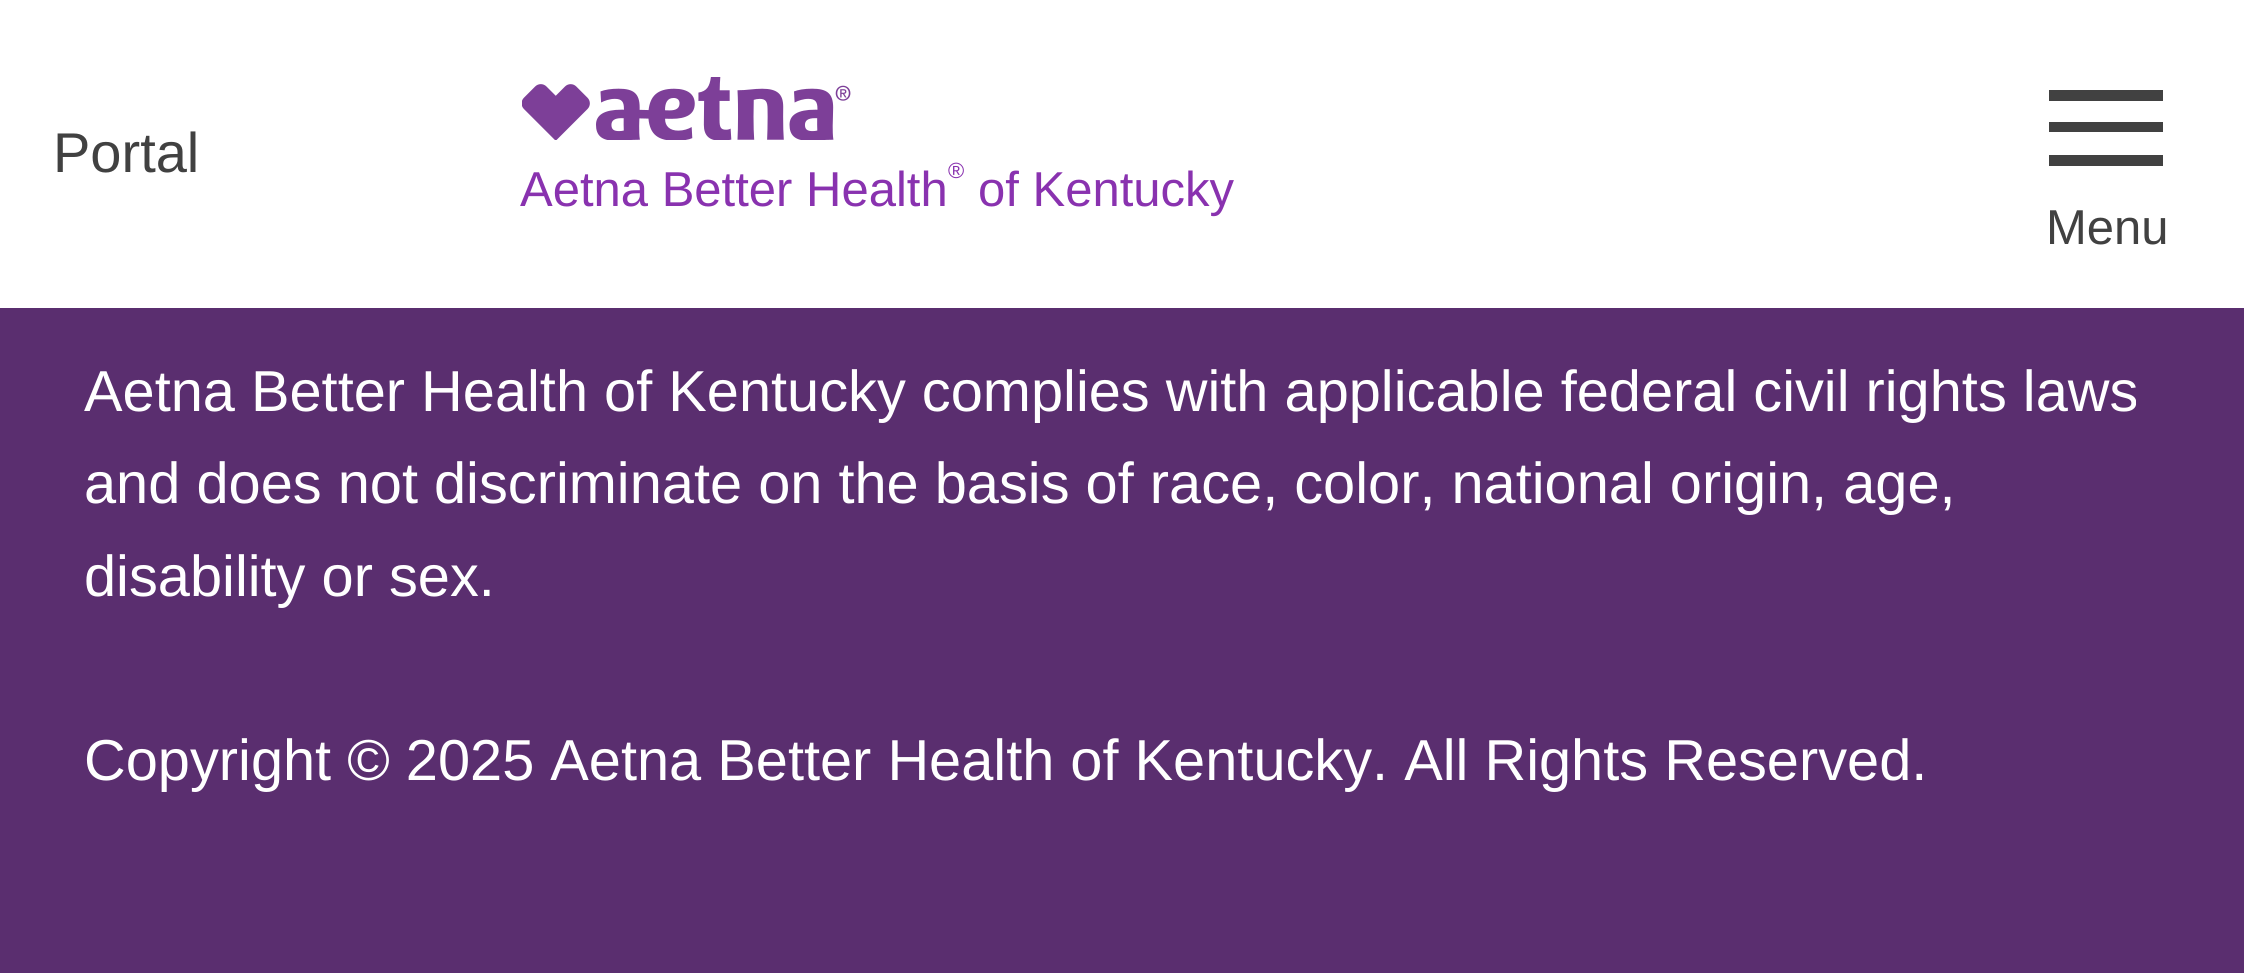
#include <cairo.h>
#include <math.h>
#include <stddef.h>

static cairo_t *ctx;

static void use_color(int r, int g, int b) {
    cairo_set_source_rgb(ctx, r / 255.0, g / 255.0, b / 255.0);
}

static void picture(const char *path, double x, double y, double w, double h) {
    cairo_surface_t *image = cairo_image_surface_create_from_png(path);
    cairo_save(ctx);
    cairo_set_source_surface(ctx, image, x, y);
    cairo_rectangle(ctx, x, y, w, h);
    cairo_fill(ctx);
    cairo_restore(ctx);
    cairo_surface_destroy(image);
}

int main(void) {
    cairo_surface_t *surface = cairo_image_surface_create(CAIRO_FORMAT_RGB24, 2244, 976);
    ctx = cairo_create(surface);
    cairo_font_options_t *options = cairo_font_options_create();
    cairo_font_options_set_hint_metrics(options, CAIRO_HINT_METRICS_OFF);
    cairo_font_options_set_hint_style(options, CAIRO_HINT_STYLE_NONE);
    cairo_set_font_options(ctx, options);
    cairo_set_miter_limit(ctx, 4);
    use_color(255, 255, 255);
    cairo_paint(ctx);
    cairo_select_font_face(ctx, "Liberation Sans", CAIRO_FONT_SLANT_NORMAL, CAIRO_FONT_WEIGHT_NORMAL);
    cairo_set_font_size(ctx, 56);
    use_color(65, 65, 65);
    cairo_move_to(ctx, 53, 172);
    cairo_show_text(ctx, "Portal");
    picture("img1.png", 522, 77, 329, 63);
    cairo_set_font_size(ctx, 49);
    use_color(137, 50, 175);
    cairo_move_to(ctx, 520, 206);
    cairo_show_text(ctx, "Aetna Better Health");
    cairo_set_font_size(ctx, 22);
    cairo_move_to(ctx, 948, 178);
    cairo_show_text(ctx, "®");
    cairo_set_font_size(ctx, 49);
    cairo_move_to(ctx, 978, 206);
    cairo_show_text(ctx, "of Kentucky");
    use_color(65, 65, 65);
    cairo_rectangle(ctx, 2049, 122, 114, 10);
    cairo_fill(ctx);
    cairo_rectangle(ctx, 2049, 90, 114, 11);
    cairo_fill(ctx);
    cairo_rectangle(ctx, 2049, 155, 114, 11);
    cairo_fill(ctx);
    cairo_move_to(ctx, 2046, 244);
    cairo_show_text(ctx, "Menu");
    use_color(90, 46, 111);
    cairo_rectangle(ctx, 0, 308, 2244, 665);
    cairo_fill(ctx);
    cairo_set_font_size(ctx, 57.75);
    use_color(255, 255, 255);
    cairo_move_to(ctx, 84, 411);
    cairo_show_text(ctx, "Aetna Better Health of Kentucky complies with applicable federal civil rights laws");
    cairo_move_to(ctx, 84, 503);
    cairo_show_text(ctx, "and does not discriminate on the basis of race, color, national origin, age,");
    cairo_move_to(ctx, 84, 596);
    cairo_show_text(ctx, "disability or sex.");
    cairo_move_to(ctx, 84, 780);
    cairo_show_text(ctx, "Copyright © 2025 Aetna Better Health of Kentucky. All Rights Reserved.");
    cairo_surface_write_to_png(surface, "result.png");
    cairo_font_options_destroy(options);
    cairo_destroy(ctx);
    cairo_surface_destroy(surface);
    return 0;
}
